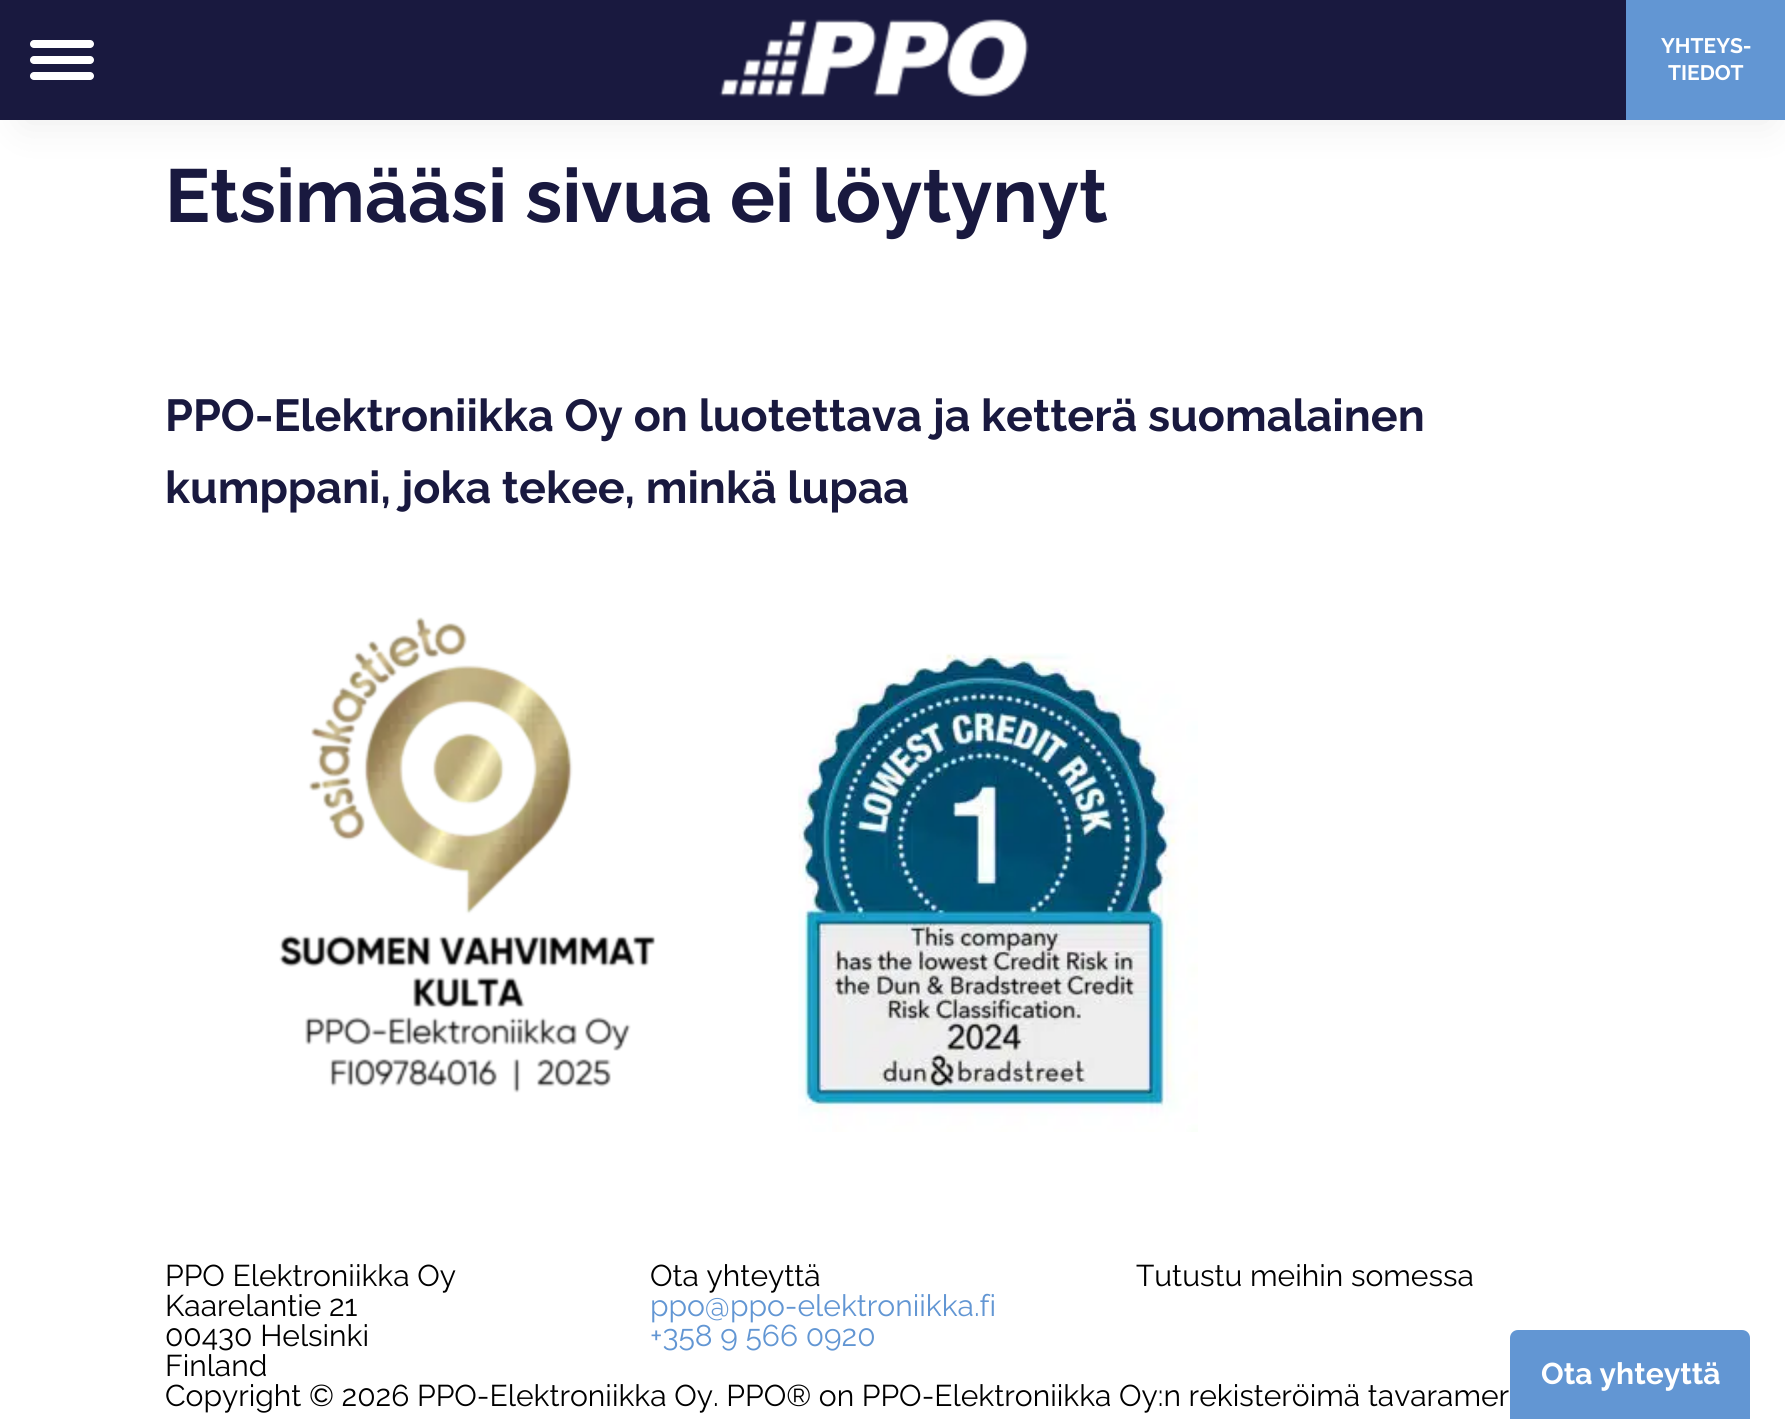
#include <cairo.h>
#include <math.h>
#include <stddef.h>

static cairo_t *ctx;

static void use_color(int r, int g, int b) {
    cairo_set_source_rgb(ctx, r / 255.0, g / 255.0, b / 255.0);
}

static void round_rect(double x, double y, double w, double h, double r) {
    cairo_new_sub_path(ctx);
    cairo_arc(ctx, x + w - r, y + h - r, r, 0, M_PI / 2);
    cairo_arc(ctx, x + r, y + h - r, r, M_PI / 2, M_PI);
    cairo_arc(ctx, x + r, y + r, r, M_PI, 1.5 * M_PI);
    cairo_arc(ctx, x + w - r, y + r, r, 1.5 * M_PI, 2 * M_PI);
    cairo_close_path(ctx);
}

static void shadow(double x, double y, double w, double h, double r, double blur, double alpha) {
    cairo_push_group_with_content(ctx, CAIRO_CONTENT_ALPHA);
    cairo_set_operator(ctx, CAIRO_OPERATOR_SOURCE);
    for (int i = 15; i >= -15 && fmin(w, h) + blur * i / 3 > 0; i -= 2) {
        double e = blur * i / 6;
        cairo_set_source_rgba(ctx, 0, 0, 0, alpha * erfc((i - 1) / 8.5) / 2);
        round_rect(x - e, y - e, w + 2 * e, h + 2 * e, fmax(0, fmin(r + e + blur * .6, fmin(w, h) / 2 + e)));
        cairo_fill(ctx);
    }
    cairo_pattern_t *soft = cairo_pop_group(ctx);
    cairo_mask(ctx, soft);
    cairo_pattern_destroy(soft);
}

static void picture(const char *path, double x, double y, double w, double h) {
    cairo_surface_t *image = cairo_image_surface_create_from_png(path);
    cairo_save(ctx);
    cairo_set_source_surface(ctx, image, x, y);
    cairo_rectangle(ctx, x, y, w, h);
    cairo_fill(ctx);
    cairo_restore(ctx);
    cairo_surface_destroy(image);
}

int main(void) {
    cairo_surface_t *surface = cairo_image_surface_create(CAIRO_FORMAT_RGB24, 1785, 1419);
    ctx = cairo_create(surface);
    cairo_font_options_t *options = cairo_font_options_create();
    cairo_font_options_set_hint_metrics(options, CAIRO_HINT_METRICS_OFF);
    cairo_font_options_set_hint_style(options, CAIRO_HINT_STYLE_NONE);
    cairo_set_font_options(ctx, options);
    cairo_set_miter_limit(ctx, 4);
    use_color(255, 255, 255);
    cairo_paint(ctx);
    use_color(50, 50, 50);
    shadow(24, 42, 1746, 80, 0, 20, 0.1);
    use_color(25, 25, 63);
    cairo_rectangle(ctx, 0, 0, 1626, 120);
    cairo_fill(ctx);
    use_color(255, 255, 255);
    round_rect(30, 40, 64, 8, 4);
    cairo_fill(ctx);
    round_rect(30, 56, 64, 8, 4);
    cairo_fill(ctx);
    round_rect(30, 72, 64, 8, 4);
    cairo_fill(ctx);
    picture("img1.png", 719, 19, 310, 78);
    use_color(98, 150, 211);
    cairo_rectangle(ctx, 1626, 0, 159, 120);
    cairo_fill(ctx);
    cairo_select_font_face(ctx, "Raleway", CAIRO_FONT_SLANT_NORMAL, CAIRO_FONT_WEIGHT_BOLD);
    cairo_set_font_size(ctx, 21);
    use_color(255, 255, 255);
    cairo_move_to(ctx, 1661, 53);
    cairo_show_text(ctx, "YHTEYS-");
    cairo_move_to(ctx, 1668, 80);
    cairo_show_text(ctx, "TIEDOT");
    cairo_set_font_size(ctx, 75);
    use_color(25, 25, 63);
    cairo_move_to(ctx, 165, 222);
    cairo_show_text(ctx, "Etsimääsi sivua ei löytynyt");
    cairo_set_font_size(ctx, 44.8);
    cairo_move_to(ctx, 165, 431);
    cairo_show_text(ctx, "PPO-Elektroniikka Oy on luotettava ja ketterä suomalainen");
    cairo_move_to(ctx, 165, 503);
    cairo_show_text(ctx, "kumppani, joka tekee, minkä lupaa");
    picture("img2.png", 279, 617, 377, 476);
    picture("img3.png", 798, 653, 400, 479);
    cairo_select_font_face(ctx, "Raleway", CAIRO_FONT_SLANT_NORMAL, CAIRO_FONT_WEIGHT_NORMAL);
    cairo_set_font_size(ctx, 30);
    use_color(0, 0, 0);
    cairo_move_to(ctx, 165, 1286);
    cairo_show_text(ctx, "PPO Elektroniikka Oy");
    cairo_move_to(ctx, 165, 1316);
    cairo_show_text(ctx, "Kaarelantie 21");
    cairo_move_to(ctx, 165, 1346);
    cairo_show_text(ctx, "00430 Helsinki");
    cairo_move_to(ctx, 165, 1376);
    cairo_show_text(ctx, "Finland");
    cairo_move_to(ctx, 650, 1286);
    cairo_show_text(ctx, "Ota yhteyttä");
    use_color(98, 150, 211);
    cairo_move_to(ctx, 650, 1316);
    cairo_show_text(ctx, "ppo@ppo-elektroniikka.fi");
    cairo_move_to(ctx, 650, 1346);
    cairo_show_text(ctx, "+358 9 566 0920");
    use_color(0, 0, 0);
    cairo_move_to(ctx, 1136, 1286);
    cairo_show_text(ctx, "Tutustu meihin somessa");
    use_color(98, 150, 211);
    cairo_new_path(ctx);
    cairo_move_to(ctx, 1518, 1330);
    cairo_line_to(ctx, 1742, 1330);
    cairo_curve_to(ctx, 1746.5, 1330, 1750, 1333.5, 1750, 1338);
    cairo_line_to(ctx, 1750, 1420);
    cairo_line_to(ctx, 1510, 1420);
    cairo_line_to(ctx, 1510, 1338);
    cairo_curve_to(ctx, 1510, 1333.5, 1513.5, 1330, 1518, 1330);
    cairo_close_path(ctx);
    cairo_fill(ctx);
    cairo_select_font_face(ctx, "Raleway", CAIRO_FONT_SLANT_NORMAL, CAIRO_FONT_WEIGHT_BOLD);
    use_color(255, 255, 255);
    cairo_move_to(ctx, 1541, 1384);
    cairo_show_text(ctx, "Ota yhteyttä");
    cairo_select_font_face(ctx, "Raleway", CAIRO_FONT_SLANT_NORMAL, CAIRO_FONT_WEIGHT_NORMAL);
    use_color(0, 0, 0);
    cairo_move_to(ctx, 165, 1406);
    cairo_show_text(ctx, "Copyright © 2026 PPO-Elektroniikka Oy. PPO® on PPO-Elektroniikka Oy:n rekisteröimä tavaramer");
    cairo_surface_write_to_png(surface, "result.png");
    cairo_font_options_destroy(options);
    cairo_destroy(ctx);
    cairo_surface_destroy(surface);
    return 0;
}
